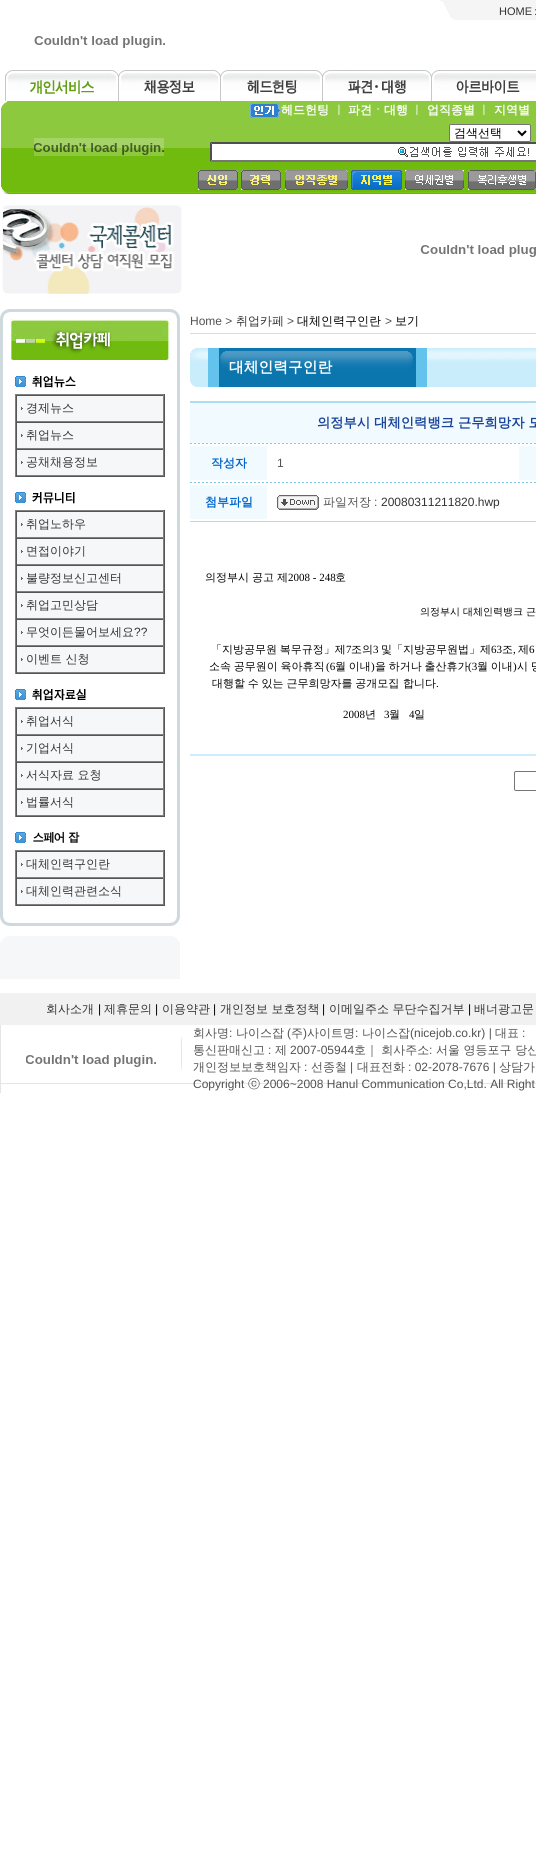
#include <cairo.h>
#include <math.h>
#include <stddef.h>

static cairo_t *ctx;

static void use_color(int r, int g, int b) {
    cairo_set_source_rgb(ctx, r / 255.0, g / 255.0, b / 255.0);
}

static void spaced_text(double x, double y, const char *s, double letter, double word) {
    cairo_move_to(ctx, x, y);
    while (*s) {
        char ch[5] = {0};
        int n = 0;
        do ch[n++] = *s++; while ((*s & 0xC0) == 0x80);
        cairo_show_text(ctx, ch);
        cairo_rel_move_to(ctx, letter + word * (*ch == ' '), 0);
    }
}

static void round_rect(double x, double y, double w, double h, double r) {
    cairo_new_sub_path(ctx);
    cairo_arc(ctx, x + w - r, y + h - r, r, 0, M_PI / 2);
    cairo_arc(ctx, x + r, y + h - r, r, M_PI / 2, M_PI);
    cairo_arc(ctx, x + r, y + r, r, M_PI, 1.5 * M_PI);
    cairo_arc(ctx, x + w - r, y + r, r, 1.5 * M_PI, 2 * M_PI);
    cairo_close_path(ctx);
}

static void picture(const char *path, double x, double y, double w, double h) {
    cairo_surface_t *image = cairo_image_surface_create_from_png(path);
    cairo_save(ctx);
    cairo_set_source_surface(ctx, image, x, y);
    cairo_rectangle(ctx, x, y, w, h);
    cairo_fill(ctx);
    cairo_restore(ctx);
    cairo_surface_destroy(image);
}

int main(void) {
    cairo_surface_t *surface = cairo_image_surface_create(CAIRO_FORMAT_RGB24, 536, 1858);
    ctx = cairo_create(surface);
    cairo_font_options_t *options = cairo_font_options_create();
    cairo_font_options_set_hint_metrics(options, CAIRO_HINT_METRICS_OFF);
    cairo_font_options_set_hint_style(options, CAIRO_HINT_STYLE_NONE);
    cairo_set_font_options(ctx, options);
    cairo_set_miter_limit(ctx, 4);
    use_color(255, 255, 255);
    cairo_paint(ctx);
    picture("img1.png", 440, 0, 15, 20);
    use_color(245, 245, 245);
    cairo_rectangle(ctx, 455, 0, 81, 20);
    cairo_fill(ctx);
    cairo_select_font_face(ctx, "Liberation Sans", CAIRO_FONT_SLANT_NORMAL, CAIRO_FONT_WEIGHT_NORMAL);
    cairo_set_font_size(ctx, 11);
    use_color(51, 51, 51);
    cairo_move_to(ctx, 499, 15);
    cairo_show_text(ctx, "HOME");
    use_color(82, 82, 82);
    cairo_move_to(ctx, 534, 15);
    cairo_show_text(ctx, ":");
    picture("img2.png", 34, 36, 131, 12);
    picture("img3.png", 5, 70, 531, 31);
    picture("img4.png", 1, 101, 535, 93);
    picture("img5.png", 250, 103, 31, 15);
    cairo_select_font_face(ctx, "WenQuanYi Zen Hei", CAIRO_FONT_SLANT_NORMAL, CAIRO_FONT_WEIGHT_BOLD);
    cairo_set_font_size(ctx, 12);
    use_color(255, 255, 255);
    cairo_move_to(ctx, 281, 114);
    cairo_show_text(ctx, "헤드헌팅");
    cairo_select_font_face(ctx, "WenQuanYi Zen Hei Medium", CAIRO_FONT_SLANT_NORMAL, CAIRO_FONT_WEIGHT_NORMAL);
    cairo_move_to(ctx, 333, 114);
    cairo_show_text(ctx, "ㅣ");
    cairo_select_font_face(ctx, "WenQuanYi Zen Hei", CAIRO_FONT_SLANT_NORMAL, CAIRO_FONT_WEIGHT_BOLD);
    cairo_move_to(ctx, 348, 114);
    cairo_show_text(ctx, "파견ㆍ대행");
    cairo_select_font_face(ctx, "WenQuanYi Zen Hei Medium", CAIRO_FONT_SLANT_NORMAL, CAIRO_FONT_WEIGHT_NORMAL);
    cairo_move_to(ctx, 411, 114);
    cairo_show_text(ctx, "ㅣ");
    cairo_select_font_face(ctx, "WenQuanYi Zen Hei", CAIRO_FONT_SLANT_NORMAL, CAIRO_FONT_WEIGHT_BOLD);
    cairo_move_to(ctx, 427, 114);
    cairo_show_text(ctx, "업직종별");
    cairo_select_font_face(ctx, "WenQuanYi Zen Hei Medium", CAIRO_FONT_SLANT_NORMAL, CAIRO_FONT_WEIGHT_NORMAL);
    cairo_move_to(ctx, 478, 114);
    cairo_show_text(ctx, "ㅣ");
    cairo_select_font_face(ctx, "WenQuanYi Zen Hei", CAIRO_FONT_SLANT_NORMAL, CAIRO_FONT_WEIGHT_BOLD);
    cairo_move_to(ctx, 494, 114);
    cairo_show_text(ctx, "지역별");
    round_rect(449.5, 124.5, 81, 17, 1.5);
    cairo_fill_preserve(ctx);
    use_color(118, 118, 118);
    cairo_set_line_width(ctx, 1);
    cairo_stroke(ctx);
    cairo_new_path(ctx);
    cairo_move_to(ctx, 518, 131);
    cairo_line_to(ctx, 522, 135);
    cairo_line_to(ctx, 526, 131);
    use_color(0, 0, 0);
    cairo_set_line_width(ctx, 2);
    cairo_stroke(ctx);
    cairo_select_font_face(ctx, "WenQuanYi Zen Hei Medium", CAIRO_FONT_SLANT_NORMAL, CAIRO_FONT_WEIGHT_NORMAL);
    cairo_move_to(ctx, 454, 137);
    cairo_show_text(ctx, "검색선택");
    use_color(255, 255, 255);
    cairo_rectangle(ctx, 210, 142, 326, 20);
    cairo_fill(ctx);
    picture("img6.png", 398, 147, 131, 10);
    use_color(79, 79, 79);
    cairo_new_path(ctx);
    cairo_move_to(ctx, 210, 142);
    cairo_line_to(ctx, 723, 142);
    cairo_line_to(ctx, 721, 144);
    cairo_line_to(ctx, 212, 144);
    cairo_close_path(ctx);
    cairo_fill(ctx);
    use_color(118, 118, 118);
    cairo_new_path(ctx);
    cairo_move_to(ctx, 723, 162);
    cairo_line_to(ctx, 210, 162);
    cairo_line_to(ctx, 212, 160);
    cairo_line_to(ctx, 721, 160);
    cairo_close_path(ctx);
    cairo_fill(ctx);
    use_color(79, 79, 79);
    cairo_new_path(ctx);
    cairo_move_to(ctx, 210, 162);
    cairo_line_to(ctx, 210, 142);
    cairo_line_to(ctx, 212, 144);
    cairo_line_to(ctx, 212, 160);
    cairo_close_path(ctx);
    cairo_fill(ctx);
    picture("img7.png", 198, 170, 40, 20);
    picture("img8.png", 241, 170, 40, 20);
    picture("img9.png", 285, 170, 63, 20);
    picture("img10.png", 351, 170, 51, 20);
    picture("img11.png", 405, 170, 59, 20);
    picture("img12.png", 468, 170, 68, 20);
    picture("img13.png", 34, 138, 130, 18);
    picture("img14.png", 2, 205, 180, 89);
    picture("img15.png", 420, 245, 116, 12);
    use_color(246, 247, 248);
    cairo_rectangle(ctx, 0, 943, 180, 36);
    cairo_fill(ctx);
    picture("img16.png", 0, 309, 180, 10);
    picture("img17.png", 0, 319, 180, 597);
    picture("img18.png", 10, 319, 160, 42);
    picture("img19.png", 15, 376, 61, 12);
    use_color(128, 128, 128);
    cairo_rectangle(ctx, 15, 394, 150, 1);
    cairo_fill(ctx);
    use_color(85, 85, 85);
    cairo_rectangle(ctx, 164, 394, 1, 83);
    cairo_fill(ctx);
    cairo_rectangle(ctx, 15, 476, 150, 1);
    cairo_fill(ctx);
    use_color(128, 128, 128);
    cairo_rectangle(ctx, 15, 394, 1, 83);
    cairo_fill(ctx);
    use_color(246, 247, 248);
    cairo_rectangle(ctx, 17, 396, 146, 25);
    cairo_fill(ctx);
    use_color(85, 85, 85);
    cairo_rectangle(ctx, 16, 395, 148, 1);
    cairo_fill(ctx);
    use_color(128, 128, 128);
    cairo_rectangle(ctx, 163, 395, 1, 27);
    cairo_fill(ctx);
    cairo_rectangle(ctx, 16, 421, 148, 1);
    cairo_fill(ctx);
    use_color(85, 85, 85);
    cairo_rectangle(ctx, 16, 395, 1, 27);
    cairo_fill(ctx);
    picture("img20.png", 21, 407, 2, 3);
    use_color(51, 51, 51);
    cairo_move_to(ctx, 26, 412);
    cairo_show_text(ctx, "경제뉴스");
    use_color(246, 247, 248);
    cairo_rectangle(ctx, 17, 423, 146, 25);
    cairo_fill(ctx);
    use_color(85, 85, 85);
    cairo_rectangle(ctx, 16, 422, 148, 1);
    cairo_fill(ctx);
    use_color(128, 128, 128);
    cairo_rectangle(ctx, 163, 422, 1, 27);
    cairo_fill(ctx);
    cairo_rectangle(ctx, 16, 448, 148, 1);
    cairo_fill(ctx);
    use_color(85, 85, 85);
    cairo_rectangle(ctx, 16, 422, 1, 27);
    cairo_fill(ctx);
    picture("img20.png", 21, 434, 2, 3);
    use_color(51, 51, 51);
    cairo_move_to(ctx, 26, 439);
    cairo_show_text(ctx, "취업뉴스");
    use_color(246, 247, 248);
    cairo_rectangle(ctx, 17, 450, 146, 25);
    cairo_fill(ctx);
    use_color(85, 85, 85);
    cairo_rectangle(ctx, 16, 449, 148, 1);
    cairo_fill(ctx);
    use_color(128, 128, 128);
    cairo_rectangle(ctx, 163, 449, 1, 27);
    cairo_fill(ctx);
    cairo_rectangle(ctx, 16, 475, 148, 1);
    cairo_fill(ctx);
    use_color(85, 85, 85);
    cairo_rectangle(ctx, 16, 449, 1, 27);
    cairo_fill(ctx);
    picture("img20.png", 21, 461, 2, 3);
    use_color(51, 51, 51);
    cairo_move_to(ctx, 26, 466);
    cairo_show_text(ctx, "공채채용정보");
    picture("img21.png", 15, 492, 60, 12);
    use_color(128, 128, 128);
    cairo_rectangle(ctx, 15, 510, 150, 1);
    cairo_fill(ctx);
    use_color(85, 85, 85);
    cairo_rectangle(ctx, 164, 510, 1, 164);
    cairo_fill(ctx);
    cairo_rectangle(ctx, 15, 673, 150, 1);
    cairo_fill(ctx);
    use_color(128, 128, 128);
    cairo_rectangle(ctx, 15, 510, 1, 164);
    cairo_fill(ctx);
    use_color(246, 247, 248);
    cairo_rectangle(ctx, 17, 512, 146, 25);
    cairo_fill(ctx);
    use_color(85, 85, 85);
    cairo_rectangle(ctx, 16, 511, 148, 1);
    cairo_fill(ctx);
    use_color(128, 128, 128);
    cairo_rectangle(ctx, 163, 511, 1, 27);
    cairo_fill(ctx);
    cairo_rectangle(ctx, 16, 537, 148, 1);
    cairo_fill(ctx);
    use_color(85, 85, 85);
    cairo_rectangle(ctx, 16, 511, 1, 27);
    cairo_fill(ctx);
    picture("img20.png", 21, 523, 2, 3);
    use_color(51, 51, 51);
    cairo_move_to(ctx, 26, 528);
    cairo_show_text(ctx, "취업노하우");
    use_color(246, 247, 248);
    cairo_rectangle(ctx, 17, 539, 146, 25);
    cairo_fill(ctx);
    use_color(85, 85, 85);
    cairo_rectangle(ctx, 16, 538, 148, 1);
    cairo_fill(ctx);
    use_color(128, 128, 128);
    cairo_rectangle(ctx, 163, 538, 1, 27);
    cairo_fill(ctx);
    cairo_rectangle(ctx, 16, 564, 148, 1);
    cairo_fill(ctx);
    use_color(85, 85, 85);
    cairo_rectangle(ctx, 16, 538, 1, 27);
    cairo_fill(ctx);
    picture("img20.png", 21, 550, 2, 3);
    use_color(51, 51, 51);
    cairo_move_to(ctx, 26, 555);
    cairo_show_text(ctx, "면접이야기");
    use_color(246, 247, 248);
    cairo_rectangle(ctx, 17, 566, 146, 25);
    cairo_fill(ctx);
    use_color(85, 85, 85);
    cairo_rectangle(ctx, 16, 565, 148, 1);
    cairo_fill(ctx);
    use_color(128, 128, 128);
    cairo_rectangle(ctx, 163, 565, 1, 27);
    cairo_fill(ctx);
    cairo_rectangle(ctx, 16, 591, 148, 1);
    cairo_fill(ctx);
    use_color(85, 85, 85);
    cairo_rectangle(ctx, 16, 565, 1, 27);
    cairo_fill(ctx);
    picture("img20.png", 21, 577, 2, 3);
    use_color(51, 51, 51);
    cairo_move_to(ctx, 26, 582);
    cairo_show_text(ctx, "불량정보신고센터");
    use_color(246, 247, 248);
    cairo_rectangle(ctx, 17, 593, 146, 25);
    cairo_fill(ctx);
    use_color(85, 85, 85);
    cairo_rectangle(ctx, 16, 592, 148, 1);
    cairo_fill(ctx);
    use_color(128, 128, 128);
    cairo_rectangle(ctx, 163, 592, 1, 27);
    cairo_fill(ctx);
    cairo_rectangle(ctx, 16, 618, 148, 1);
    cairo_fill(ctx);
    use_color(85, 85, 85);
    cairo_rectangle(ctx, 16, 592, 1, 27);
    cairo_fill(ctx);
    picture("img20.png", 21, 604, 2, 3);
    use_color(51, 51, 51);
    cairo_move_to(ctx, 26, 609);
    cairo_show_text(ctx, "취업고민상담");
    use_color(246, 247, 248);
    cairo_rectangle(ctx, 17, 620, 146, 25);
    cairo_fill(ctx);
    use_color(85, 85, 85);
    cairo_rectangle(ctx, 16, 619, 148, 1);
    cairo_fill(ctx);
    use_color(128, 128, 128);
    cairo_rectangle(ctx, 163, 619, 1, 27);
    cairo_fill(ctx);
    cairo_rectangle(ctx, 16, 645, 148, 1);
    cairo_fill(ctx);
    use_color(85, 85, 85);
    cairo_rectangle(ctx, 16, 619, 1, 27);
    cairo_fill(ctx);
    picture("img20.png", 21, 631, 2, 3);
    use_color(51, 51, 51);
    cairo_move_to(ctx, 26, 636);
    cairo_show_text(ctx, "무엇이든물어보세요");
    cairo_select_font_face(ctx, "Liberation Sans", CAIRO_FONT_SLANT_NORMAL, CAIRO_FONT_WEIGHT_NORMAL);
    cairo_move_to(ctx, 134, 636);
    cairo_show_text(ctx, "?\077");
    use_color(246, 247, 248);
    cairo_rectangle(ctx, 17, 647, 146, 25);
    cairo_fill(ctx);
    use_color(85, 85, 85);
    cairo_rectangle(ctx, 16, 646, 148, 1);
    cairo_fill(ctx);
    use_color(128, 128, 128);
    cairo_rectangle(ctx, 163, 646, 1, 27);
    cairo_fill(ctx);
    cairo_rectangle(ctx, 16, 672, 148, 1);
    cairo_fill(ctx);
    use_color(85, 85, 85);
    cairo_rectangle(ctx, 16, 646, 1, 27);
    cairo_fill(ctx);
    picture("img20.png", 21, 658, 2, 3);
    cairo_select_font_face(ctx, "WenQuanYi Zen Hei Medium", CAIRO_FONT_SLANT_NORMAL, CAIRO_FONT_WEIGHT_NORMAL);
    use_color(51, 51, 51);
    cairo_move_to(ctx, 26, 663);
    cairo_show_text(ctx, "이벤트 신청");
    picture("img22.png", 15, 689, 71, 12);
    use_color(128, 128, 128);
    cairo_rectangle(ctx, 15, 707, 150, 1);
    cairo_fill(ctx);
    use_color(85, 85, 85);
    cairo_rectangle(ctx, 164, 707, 1, 110);
    cairo_fill(ctx);
    cairo_rectangle(ctx, 15, 816, 150, 1);
    cairo_fill(ctx);
    use_color(128, 128, 128);
    cairo_rectangle(ctx, 15, 707, 1, 110);
    cairo_fill(ctx);
    use_color(246, 247, 248);
    cairo_rectangle(ctx, 17, 709, 146, 25);
    cairo_fill(ctx);
    use_color(85, 85, 85);
    cairo_rectangle(ctx, 16, 708, 148, 1);
    cairo_fill(ctx);
    use_color(128, 128, 128);
    cairo_rectangle(ctx, 163, 708, 1, 27);
    cairo_fill(ctx);
    cairo_rectangle(ctx, 16, 734, 148, 1);
    cairo_fill(ctx);
    use_color(85, 85, 85);
    cairo_rectangle(ctx, 16, 708, 1, 27);
    cairo_fill(ctx);
    picture("img20.png", 21, 720, 2, 3);
    use_color(51, 51, 51);
    cairo_move_to(ctx, 26, 725);
    cairo_show_text(ctx, "취업서식");
    use_color(246, 247, 248);
    cairo_rectangle(ctx, 17, 736, 146, 25);
    cairo_fill(ctx);
    use_color(85, 85, 85);
    cairo_rectangle(ctx, 16, 735, 148, 1);
    cairo_fill(ctx);
    use_color(128, 128, 128);
    cairo_rectangle(ctx, 163, 735, 1, 27);
    cairo_fill(ctx);
    cairo_rectangle(ctx, 16, 761, 148, 1);
    cairo_fill(ctx);
    use_color(85, 85, 85);
    cairo_rectangle(ctx, 16, 735, 1, 27);
    cairo_fill(ctx);
    picture("img20.png", 21, 747, 2, 3);
    use_color(51, 51, 51);
    cairo_move_to(ctx, 26, 752);
    cairo_show_text(ctx, "기업서식");
    use_color(246, 247, 248);
    cairo_rectangle(ctx, 17, 763, 146, 25);
    cairo_fill(ctx);
    use_color(85, 85, 85);
    cairo_rectangle(ctx, 16, 762, 148, 1);
    cairo_fill(ctx);
    use_color(128, 128, 128);
    cairo_rectangle(ctx, 163, 762, 1, 27);
    cairo_fill(ctx);
    cairo_rectangle(ctx, 16, 788, 148, 1);
    cairo_fill(ctx);
    use_color(85, 85, 85);
    cairo_rectangle(ctx, 16, 762, 1, 27);
    cairo_fill(ctx);
    picture("img20.png", 21, 774, 2, 3);
    use_color(51, 51, 51);
    cairo_move_to(ctx, 26, 779);
    cairo_show_text(ctx, "서식자료 요청");
    use_color(246, 247, 248);
    cairo_rectangle(ctx, 17, 790, 146, 25);
    cairo_fill(ctx);
    use_color(85, 85, 85);
    cairo_rectangle(ctx, 16, 789, 148, 1);
    cairo_fill(ctx);
    use_color(128, 128, 128);
    cairo_rectangle(ctx, 163, 789, 1, 27);
    cairo_fill(ctx);
    cairo_rectangle(ctx, 16, 815, 148, 1);
    cairo_fill(ctx);
    use_color(85, 85, 85);
    cairo_rectangle(ctx, 16, 789, 1, 27);
    cairo_fill(ctx);
    picture("img20.png", 21, 801, 2, 3);
    use_color(51, 51, 51);
    cairo_move_to(ctx, 26, 806);
    cairo_show_text(ctx, "법률서식");
    picture("img23.png", 15, 831, 65, 12);
    use_color(128, 128, 128);
    cairo_rectangle(ctx, 15, 850, 150, 1);
    cairo_fill(ctx);
    use_color(85, 85, 85);
    cairo_rectangle(ctx, 164, 850, 1, 56);
    cairo_fill(ctx);
    cairo_rectangle(ctx, 15, 905, 150, 1);
    cairo_fill(ctx);
    use_color(128, 128, 128);
    cairo_rectangle(ctx, 15, 850, 1, 56);
    cairo_fill(ctx);
    use_color(246, 247, 248);
    cairo_rectangle(ctx, 17, 852, 146, 25);
    cairo_fill(ctx);
    use_color(85, 85, 85);
    cairo_rectangle(ctx, 16, 851, 148, 1);
    cairo_fill(ctx);
    use_color(128, 128, 128);
    cairo_rectangle(ctx, 163, 851, 1, 27);
    cairo_fill(ctx);
    cairo_rectangle(ctx, 16, 877, 148, 1);
    cairo_fill(ctx);
    use_color(85, 85, 85);
    cairo_rectangle(ctx, 16, 851, 1, 27);
    cairo_fill(ctx);
    picture("img20.png", 21, 863, 2, 3);
    use_color(51, 51, 51);
    cairo_move_to(ctx, 26, 868);
    cairo_show_text(ctx, "대체인력구인란");
    use_color(246, 247, 248);
    cairo_rectangle(ctx, 17, 879, 146, 25);
    cairo_fill(ctx);
    use_color(85, 85, 85);
    cairo_rectangle(ctx, 16, 878, 148, 1);
    cairo_fill(ctx);
    use_color(128, 128, 128);
    cairo_rectangle(ctx, 163, 878, 1, 27);
    cairo_fill(ctx);
    cairo_rectangle(ctx, 16, 904, 148, 1);
    cairo_fill(ctx);
    use_color(85, 85, 85);
    cairo_rectangle(ctx, 16, 878, 1, 27);
    cairo_fill(ctx);
    picture("img20.png", 21, 890, 2, 3);
    use_color(51, 51, 51);
    cairo_move_to(ctx, 26, 895);
    cairo_show_text(ctx, "대체인력관련소식");
    picture("img24.png", 0, 916, 180, 10);
    picture("img25.png", 0, 936, 180, 7);
    cairo_select_font_face(ctx, "Liberation Sans", CAIRO_FONT_SLANT_NORMAL, CAIRO_FONT_WEIGHT_NORMAL);
    use_color(82, 82, 82);
    cairo_move_to(ctx, 190, 325);
    cairo_show_text(ctx, "Home >");
    cairo_select_font_face(ctx, "WenQuanYi Zen Hei Medium", CAIRO_FONT_SLANT_NORMAL, CAIRO_FONT_WEIGHT_NORMAL);
    use_color(51, 51, 51);
    cairo_move_to(ctx, 236, 325);
    cairo_show_text(ctx, "취업카페");
    cairo_select_font_face(ctx, "Liberation Sans", CAIRO_FONT_SLANT_NORMAL, CAIRO_FONT_WEIGHT_NORMAL);
    use_color(82, 82, 82);
    cairo_move_to(ctx, 287, 325);
    cairo_show_text(ctx, ">");
    cairo_select_font_face(ctx, "WenQuanYi Zen Hei Medium", CAIRO_FONT_SLANT_NORMAL, CAIRO_FONT_WEIGHT_NORMAL);
    use_color(0, 0, 0);
    cairo_move_to(ctx, 297, 325);
    cairo_show_text(ctx, "대체인력구인란");
    cairo_select_font_face(ctx, "Liberation Sans", CAIRO_FONT_SLANT_NORMAL, CAIRO_FONT_WEIGHT_NORMAL);
    use_color(82, 82, 82);
    cairo_move_to(ctx, 385, 325);
    cairo_show_text(ctx, ">");
    cairo_select_font_face(ctx, "WenQuanYi Zen Hei Medium", CAIRO_FONT_SLANT_NORMAL, CAIRO_FONT_WEIGHT_NORMAL);
    use_color(0, 0, 0);
    cairo_move_to(ctx, 395, 325);
    cairo_show_text(ctx, "보기");
    use_color(221, 221, 221);
    cairo_rectangle(ctx, 190, 333, 346, 1);
    cairo_fill(ctx);
    picture("img26.png", 190, 348, 346, 39);
    cairo_select_font_face(ctx, "WenQuanYi Zen Hei", CAIRO_FONT_SLANT_NORMAL, CAIRO_FONT_WEIGHT_BOLD);
    cairo_set_font_size(ctx, 14.75);
    use_color(255, 255, 255);
    cairo_move_to(ctx, 229, 372);
    cairo_show_text(ctx, "대체인력구인란");
    use_color(172, 221, 245);
    cairo_rectangle(ctx, 190, 401, 346, 2);
    cairo_fill(ctx);
    use_color(240, 250, 255);
    cairo_rectangle(ctx, 190, 403, 346, 40);
    cairo_fill(ctx);
    cairo_set_font_size(ctx, 13.3);
    use_color(26, 68, 154);
    cairo_move_to(ctx, 317, 427);
    cairo_show_text(ctx, "의정부시 대체인력뱅크 근무희망자 모");
    picture("img27.png", 190, 443, 346, 1);
    use_color(240, 250, 255);
    cairo_rectangle(ctx, 190, 446, 77, 34);
    cairo_fill(ctx);
    cairo_set_font_size(ctx, 12);
    use_color(0, 102, 204);
    cairo_move_to(ctx, 211, 467);
    cairo_show_text(ctx, "작성자");
    cairo_select_font_face(ctx, "Liberation Sans", CAIRO_FONT_SLANT_NORMAL, CAIRO_FONT_WEIGHT_NORMAL);
    use_color(82, 82, 82);
    cairo_move_to(ctx, 277, 467);
    cairo_show_text(ctx, "1");
    use_color(240, 250, 255);
    cairo_rectangle(ctx, 519, 446, 17, 34);
    cairo_fill(ctx);
    picture("img27.png", 190, 482, 346, 1);
    cairo_rectangle(ctx, 190, 485, 77, 34);
    cairo_fill(ctx);
    cairo_select_font_face(ctx, "WenQuanYi Zen Hei", CAIRO_FONT_SLANT_NORMAL, CAIRO_FONT_WEIGHT_BOLD);
    use_color(0, 102, 204);
    cairo_move_to(ctx, 205, 506);
    cairo_show_text(ctx, "첨부파일");
    picture("img28.png", 277, 495, 42, 15);
    cairo_select_font_face(ctx, "WenQuanYi Zen Hei Medium", CAIRO_FONT_SLANT_NORMAL, CAIRO_FONT_WEIGHT_NORMAL);
    use_color(82, 82, 82);
    cairo_move_to(ctx, 323, 506);
    cairo_show_text(ctx, "파일저장");
    cairo_select_font_face(ctx, "Liberation Sans", CAIRO_FONT_SLANT_NORMAL, CAIRO_FONT_WEIGHT_NORMAL);
    cairo_move_to(ctx, 374, 506);
    cairo_show_text(ctx, ":");
    use_color(51, 51, 51);
    cairo_move_to(ctx, 381, 506);
    cairo_show_text(ctx, "20080311211820.hwp");
    use_color(172, 221, 245);
    cairo_rectangle(ctx, 190, 521, 346, 1);
    cairo_fill(ctx);
    cairo_select_font_face(ctx, "WenQuanYi Zen Hei Medium", CAIRO_FONT_SLANT_NORMAL, CAIRO_FONT_WEIGHT_NORMAL);
    cairo_set_font_size(ctx, 11);
    use_color(0, 0, 0);
    cairo_move_to(ctx, 205, 581);
    cairo_show_text(ctx, "의정부시");
    cairo_move_to(ctx, 252, 581);
    cairo_show_text(ctx, "공고");
    cairo_move_to(ctx, 277, 581);
    cairo_show_text(ctx, "제");
    cairo_select_font_face(ctx, "Liberation Serif", CAIRO_FONT_SLANT_NORMAL, CAIRO_FONT_WEIGHT_NORMAL);
    cairo_move_to(ctx, 288, 581);
    cairo_show_text(ctx, "2008 - 248");
    cairo_select_font_face(ctx, "WenQuanYi Zen Hei Medium", CAIRO_FONT_SLANT_NORMAL, CAIRO_FONT_WEIGHT_NORMAL);
    cairo_move_to(ctx, 335, 581);
    cairo_show_text(ctx, "호");
    cairo_set_font_size(ctx, 10);
    cairo_move_to(ctx, 420, 615);
    cairo_show_text(ctx, "의정부시 대체인력뱅크 근");
    cairo_set_font_size(ctx, 11);
    spaced_text(211, 653, "「지방공무원 복무규정」제", 0, -0.5);
    cairo_select_font_face(ctx, "Liberation Serif", CAIRO_FONT_SLANT_NORMAL, CAIRO_FONT_WEIGHT_NORMAL);
    cairo_move_to(ctx, 346, 653);
    cairo_show_text(ctx, "7");
    cairo_select_font_face(ctx, "WenQuanYi Zen Hei Medium", CAIRO_FONT_SLANT_NORMAL, CAIRO_FONT_WEIGHT_NORMAL);
    cairo_move_to(ctx, 351, 653);
    cairo_show_text(ctx, "조의");
    cairo_select_font_face(ctx, "Liberation Serif", CAIRO_FONT_SLANT_NORMAL, CAIRO_FONT_WEIGHT_NORMAL);
    cairo_move_to(ctx, 373, 653);
    cairo_show_text(ctx, "3");
    cairo_select_font_face(ctx, "WenQuanYi Zen Hei Medium", CAIRO_FONT_SLANT_NORMAL, CAIRO_FONT_WEIGHT_NORMAL);
    cairo_move_to(ctx, 381, 653);
    cairo_show_text(ctx, "및「지방공무원법」제");
    cairo_select_font_face(ctx, "Liberation Serif", CAIRO_FONT_SLANT_NORMAL, CAIRO_FONT_WEIGHT_NORMAL);
    cairo_move_to(ctx, 491, 653);
    cairo_show_text(ctx, "63");
    cairo_select_font_face(ctx, "WenQuanYi Zen Hei Medium", CAIRO_FONT_SLANT_NORMAL, CAIRO_FONT_WEIGHT_NORMAL);
    cairo_move_to(ctx, 502, 653);
    cairo_show_text(ctx, "조");
    cairo_select_font_face(ctx, "Liberation Serif", CAIRO_FONT_SLANT_NORMAL, CAIRO_FONT_WEIGHT_NORMAL);
    cairo_move_to(ctx, 513, 653);
    cairo_show_text(ctx, ",");
    cairo_select_font_face(ctx, "WenQuanYi Zen Hei Medium", CAIRO_FONT_SLANT_NORMAL, CAIRO_FONT_WEIGHT_NORMAL);
    cairo_move_to(ctx, 518, 653);
    cairo_show_text(ctx, "제");
    cairo_select_font_face(ctx, "Liberation Serif", CAIRO_FONT_SLANT_NORMAL, CAIRO_FONT_WEIGHT_NORMAL);
    cairo_move_to(ctx, 529, 653);
    cairo_show_text(ctx, "6");
    cairo_select_font_face(ctx, "WenQuanYi Zen Hei Medium", CAIRO_FONT_SLANT_NORMAL, CAIRO_FONT_WEIGHT_NORMAL);
    spaced_text(209, 670, "소속 공무원이 육아휴직", 0, -0.5);
    cairo_select_font_face(ctx, "Liberation Serif", CAIRO_FONT_SLANT_NORMAL, CAIRO_FONT_WEIGHT_NORMAL);
    cairo_move_to(ctx, 326, 670);
    cairo_show_text(ctx, "(6");
    cairo_select_font_face(ctx, "WenQuanYi Zen Hei Medium", CAIRO_FONT_SLANT_NORMAL, CAIRO_FONT_WEIGHT_NORMAL);
    spaced_text(335, 670, "월 이내", 0, -0.5);
    cairo_select_font_face(ctx, "Liberation Serif", CAIRO_FONT_SLANT_NORMAL, CAIRO_FONT_WEIGHT_NORMAL);
    cairo_move_to(ctx, 371, 670);
    cairo_show_text(ctx, ")");
    cairo_select_font_face(ctx, "WenQuanYi Zen Hei Medium", CAIRO_FONT_SLANT_NORMAL, CAIRO_FONT_WEIGHT_NORMAL);
    spaced_text(375, 670, "을 하거나 출산휴가", 0, -0.5);
    cairo_select_font_face(ctx, "Liberation Serif", CAIRO_FONT_SLANT_NORMAL, CAIRO_FONT_WEIGHT_NORMAL);
    cairo_move_to(ctx, 468, 670);
    cairo_show_text(ctx, "(3");
    cairo_select_font_face(ctx, "WenQuanYi Zen Hei Medium", CAIRO_FONT_SLANT_NORMAL, CAIRO_FONT_WEIGHT_NORMAL);
    spaced_text(477, 670, "월 이내", 0, -0.5);
    cairo_select_font_face(ctx, "Liberation Serif", CAIRO_FONT_SLANT_NORMAL, CAIRO_FONT_WEIGHT_NORMAL);
    cairo_move_to(ctx, 513, 670);
    cairo_show_text(ctx, ")");
    cairo_select_font_face(ctx, "WenQuanYi Zen Hei Medium", CAIRO_FONT_SLANT_NORMAL, CAIRO_FONT_WEIGHT_NORMAL);
    spaced_text(517, 670, "시 당", 0, -0.5);
    spaced_text(212, 687, "대행할 수 있는 근무희망자를 공개모집", 0, -0.5);
    cairo_move_to(ctx, 403, 687);
    cairo_show_text(ctx, "합니다");
    cairo_select_font_face(ctx, "Liberation Serif", CAIRO_FONT_SLANT_NORMAL, CAIRO_FONT_WEIGHT_NORMAL);
    cairo_move_to(ctx, 436, 687);
    cairo_show_text(ctx, ".");
    cairo_move_to(ctx, 343, 718);
    cairo_show_text(ctx, "2008");
    cairo_select_font_face(ctx, "WenQuanYi Zen Hei Medium", CAIRO_FONT_SLANT_NORMAL, CAIRO_FONT_WEIGHT_NORMAL);
    cairo_move_to(ctx, 365, 718);
    cairo_show_text(ctx, "년");
    cairo_select_font_face(ctx, "Liberation Serif", CAIRO_FONT_SLANT_NORMAL, CAIRO_FONT_WEIGHT_NORMAL);
    cairo_move_to(ctx, 384, 718);
    cairo_show_text(ctx, "3");
    cairo_select_font_face(ctx, "WenQuanYi Zen Hei Medium", CAIRO_FONT_SLANT_NORMAL, CAIRO_FONT_WEIGHT_NORMAL);
    cairo_move_to(ctx, 389, 718);
    cairo_show_text(ctx, "월");
    cairo_select_font_face(ctx, "Liberation Serif", CAIRO_FONT_SLANT_NORMAL, CAIRO_FONT_WEIGHT_NORMAL);
    cairo_move_to(ctx, 409, 718);
    cairo_show_text(ctx, "4");
    cairo_select_font_face(ctx, "WenQuanYi Zen Hei Medium", CAIRO_FONT_SLANT_NORMAL, CAIRO_FONT_WEIGHT_NORMAL);
    cairo_move_to(ctx, 414, 718);
    cairo_show_text(ctx, "일");
    use_color(206, 237, 252);
    cairo_rectangle(ctx, 190, 754, 346, 2);
    cairo_fill(ctx);
    round_rect(514.5, 771.5, 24, 19, 1.5);
    use_color(118, 118, 118);
    cairo_set_line_width(ctx, 1);
    cairo_stroke(ctx);
    use_color(241, 241, 242);
    cairo_rectangle(ctx, 0, 993, 536, 32);
    cairo_fill(ctx);
    cairo_set_font_size(ctx, 12);
    use_color(51, 51, 51);
    cairo_move_to(ctx, 46, 1013);
    cairo_show_text(ctx, "회사소개");
    cairo_select_font_face(ctx, "Liberation Sans", CAIRO_FONT_SLANT_NORMAL, CAIRO_FONT_WEIGHT_NORMAL);
    use_color(0, 0, 0);
    cairo_move_to(ctx, 98, 1013);
    cairo_show_text(ctx, "|");
    cairo_select_font_face(ctx, "WenQuanYi Zen Hei Medium", CAIRO_FONT_SLANT_NORMAL, CAIRO_FONT_WEIGHT_NORMAL);
    use_color(51, 51, 51);
    cairo_move_to(ctx, 104, 1013);
    cairo_show_text(ctx, "제휴문의");
    cairo_select_font_face(ctx, "Liberation Sans", CAIRO_FONT_SLANT_NORMAL, CAIRO_FONT_WEIGHT_NORMAL);
    use_color(0, 0, 0);
    cairo_move_to(ctx, 155, 1013);
    cairo_show_text(ctx, "|");
    cairo_select_font_face(ctx, "WenQuanYi Zen Hei Medium", CAIRO_FONT_SLANT_NORMAL, CAIRO_FONT_WEIGHT_NORMAL);
    use_color(51, 51, 51);
    cairo_move_to(ctx, 162, 1013);
    cairo_show_text(ctx, "이용약관");
    cairo_select_font_face(ctx, "Liberation Sans", CAIRO_FONT_SLANT_NORMAL, CAIRO_FONT_WEIGHT_NORMAL);
    use_color(0, 0, 0);
    cairo_move_to(ctx, 213, 1013);
    cairo_show_text(ctx, "|");
    cairo_select_font_face(ctx, "WenQuanYi Zen Hei Medium", CAIRO_FONT_SLANT_NORMAL, CAIRO_FONT_WEIGHT_NORMAL);
    use_color(51, 51, 51);
    cairo_move_to(ctx, 220, 1013);
    cairo_show_text(ctx, "개인정보 보호정책");
    cairo_select_font_face(ctx, "Liberation Sans", CAIRO_FONT_SLANT_NORMAL, CAIRO_FONT_WEIGHT_NORMAL);
    use_color(0, 0, 0);
    cairo_move_to(ctx, 322, 1013);
    cairo_show_text(ctx, "|");
    cairo_select_font_face(ctx, "WenQuanYi Zen Hei Medium", CAIRO_FONT_SLANT_NORMAL, CAIRO_FONT_WEIGHT_NORMAL);
    use_color(51, 51, 51);
    cairo_move_to(ctx, 329, 1013);
    cairo_show_text(ctx, "이메일주소 무단수집거부");
    cairo_select_font_face(ctx, "Liberation Sans", CAIRO_FONT_SLANT_NORMAL, CAIRO_FONT_WEIGHT_NORMAL);
    use_color(0, 0, 0);
    cairo_move_to(ctx, 468, 1013);
    cairo_show_text(ctx, "|");
    cairo_select_font_face(ctx, "WenQuanYi Zen Hei Medium", CAIRO_FONT_SLANT_NORMAL, CAIRO_FONT_WEIGHT_NORMAL);
    use_color(51, 51, 51);
    cairo_move_to(ctx, 474, 1013);
    cairo_show_text(ctx, "배너광고문");
    picture("img29.png", 0, 1025, 536, 68);
    picture("img30.png", 26, 1055, 130, 12);
    use_color(82, 82, 82);
    cairo_move_to(ctx, 193, 1037);
    cairo_show_text(ctx, "회사명");
    cairo_select_font_face(ctx, "Liberation Sans", CAIRO_FONT_SLANT_NORMAL, CAIRO_FONT_WEIGHT_NORMAL);
    cairo_move_to(ctx, 229, 1037);
    cairo_show_text(ctx, ":");
    cairo_select_font_face(ctx, "WenQuanYi Zen Hei Medium", CAIRO_FONT_SLANT_NORMAL, CAIRO_FONT_WEIGHT_NORMAL);
    cairo_move_to(ctx, 236, 1037);
    cairo_show_text(ctx, "나이스잡");
    cairo_select_font_face(ctx, "Liberation Sans", CAIRO_FONT_SLANT_NORMAL, CAIRO_FONT_WEIGHT_NORMAL);
    cairo_move_to(ctx, 287, 1037);
    cairo_show_text(ctx, "(");
    cairo_select_font_face(ctx, "WenQuanYi Zen Hei Medium", CAIRO_FONT_SLANT_NORMAL, CAIRO_FONT_WEIGHT_NORMAL);
    cairo_move_to(ctx, 291, 1037);
    cairo_show_text(ctx, "주");
    cairo_select_font_face(ctx, "Liberation Sans", CAIRO_FONT_SLANT_NORMAL, CAIRO_FONT_WEIGHT_NORMAL);
    cairo_move_to(ctx, 303, 1037);
    cairo_show_text(ctx, ")");
    cairo_select_font_face(ctx, "WenQuanYi Zen Hei Medium", CAIRO_FONT_SLANT_NORMAL, CAIRO_FONT_WEIGHT_NORMAL);
    cairo_move_to(ctx, 307, 1037);
    cairo_show_text(ctx, "사이트명");
    cairo_select_font_face(ctx, "Liberation Sans", CAIRO_FONT_SLANT_NORMAL, CAIRO_FONT_WEIGHT_NORMAL);
    cairo_move_to(ctx, 355, 1037);
    cairo_show_text(ctx, ":");
    cairo_select_font_face(ctx, "WenQuanYi Zen Hei Medium", CAIRO_FONT_SLANT_NORMAL, CAIRO_FONT_WEIGHT_NORMAL);
    cairo_move_to(ctx, 362, 1037);
    cairo_show_text(ctx, "나이스잡");
    cairo_select_font_face(ctx, "Liberation Sans", CAIRO_FONT_SLANT_NORMAL, CAIRO_FONT_WEIGHT_NORMAL);
    cairo_move_to(ctx, 410, 1037);
    cairo_show_text(ctx, "(nicejob.co.kr) |");
    cairo_select_font_face(ctx, "WenQuanYi Zen Hei Medium", CAIRO_FONT_SLANT_NORMAL, CAIRO_FONT_WEIGHT_NORMAL);
    cairo_move_to(ctx, 495, 1037);
    cairo_show_text(ctx, "대표");
    cairo_select_font_face(ctx, "Liberation Sans", CAIRO_FONT_SLANT_NORMAL, CAIRO_FONT_WEIGHT_NORMAL);
    cairo_move_to(ctx, 522, 1037);
    cairo_show_text(ctx, ":");
    cairo_select_font_face(ctx, "WenQuanYi Zen Hei Medium", CAIRO_FONT_SLANT_NORMAL, CAIRO_FONT_WEIGHT_NORMAL);
    cairo_move_to(ctx, 193, 1054);
    cairo_show_text(ctx, "통신판매신고");
    cairo_select_font_face(ctx, "Liberation Sans", CAIRO_FONT_SLANT_NORMAL, CAIRO_FONT_WEIGHT_NORMAL);
    cairo_move_to(ctx, 268, 1054);
    cairo_show_text(ctx, ":");
    cairo_select_font_face(ctx, "WenQuanYi Zen Hei Medium", CAIRO_FONT_SLANT_NORMAL, CAIRO_FONT_WEIGHT_NORMAL);
    cairo_move_to(ctx, 275, 1054);
    cairo_show_text(ctx, "제");
    cairo_select_font_face(ctx, "Liberation Sans", CAIRO_FONT_SLANT_NORMAL, CAIRO_FONT_WEIGHT_NORMAL);
    cairo_move_to(ctx, 290, 1054);
    cairo_show_text(ctx, "2007-05944");
    cairo_select_font_face(ctx, "WenQuanYi Zen Hei Medium", CAIRO_FONT_SLANT_NORMAL, CAIRO_FONT_WEIGHT_NORMAL);
    cairo_move_to(ctx, 354, 1054);
    cairo_show_text(ctx, "호｜ 회사주소");
    cairo_select_font_face(ctx, "Liberation Sans", CAIRO_FONT_SLANT_NORMAL, CAIRO_FONT_WEIGHT_NORMAL);
    cairo_move_to(ctx, 429, 1054);
    cairo_show_text(ctx, ":");
    cairo_select_font_face(ctx, "WenQuanYi Zen Hei Medium", CAIRO_FONT_SLANT_NORMAL, CAIRO_FONT_WEIGHT_NORMAL);
    cairo_move_to(ctx, 436, 1054);
    cairo_show_text(ctx, "서울 영등포구 당산");
    cairo_move_to(ctx, 193, 1071);
    cairo_show_text(ctx, "개인정보보호책임자");
    cairo_select_font_face(ctx, "Liberation Sans", CAIRO_FONT_SLANT_NORMAL, CAIRO_FONT_WEIGHT_NORMAL);
    cairo_move_to(ctx, 304, 1071);
    cairo_show_text(ctx, ":");
    cairo_select_font_face(ctx, "WenQuanYi Zen Hei Medium", CAIRO_FONT_SLANT_NORMAL, CAIRO_FONT_WEIGHT_NORMAL);
    cairo_move_to(ctx, 311, 1071);
    cairo_show_text(ctx, "선종철");
    cairo_select_font_face(ctx, "Liberation Sans", CAIRO_FONT_SLANT_NORMAL, CAIRO_FONT_WEIGHT_NORMAL);
    cairo_move_to(ctx, 350, 1071);
    cairo_show_text(ctx, "|");
    cairo_select_font_face(ctx, "WenQuanYi Zen Hei Medium", CAIRO_FONT_SLANT_NORMAL, CAIRO_FONT_WEIGHT_NORMAL);
    cairo_move_to(ctx, 357, 1071);
    cairo_show_text(ctx, "대표전화");
    cairo_select_font_face(ctx, "Liberation Sans", CAIRO_FONT_SLANT_NORMAL, CAIRO_FONT_WEIGHT_NORMAL);
    cairo_move_to(ctx, 408, 1071);
    cairo_show_text(ctx, ": 02-2078-7676 |");
    cairo_select_font_face(ctx, "WenQuanYi Zen Hei Medium", CAIRO_FONT_SLANT_NORMAL, CAIRO_FONT_WEIGHT_NORMAL);
    cairo_move_to(ctx, 499, 1071);
    cairo_show_text(ctx, "상담가");
    cairo_select_font_face(ctx, "Liberation Sans", CAIRO_FONT_SLANT_NORMAL, CAIRO_FONT_WEIGHT_NORMAL);
    cairo_move_to(ctx, 193, 1088);
    cairo_show_text(ctx, "Copyright");
    cairo_select_font_face(ctx, "WenQuanYi Zen Hei Medium", CAIRO_FONT_SLANT_NORMAL, CAIRO_FONT_WEIGHT_NORMAL);
    cairo_move_to(ctx, 248, 1088);
    cairo_show_text(ctx, "ⓒ");
    cairo_select_font_face(ctx, "Liberation Sans", CAIRO_FONT_SLANT_NORMAL, CAIRO_FONT_WEIGHT_NORMAL);
    cairo_move_to(ctx, 263, 1088);
    cairo_show_text(ctx, "2006~2008 Hanul Communication Co,Ltd. All Right");
    cairo_surface_write_to_png(surface, "result.png");
    cairo_font_options_destroy(options);
    cairo_destroy(ctx);
    cairo_surface_destroy(surface);
    return 0;
}
